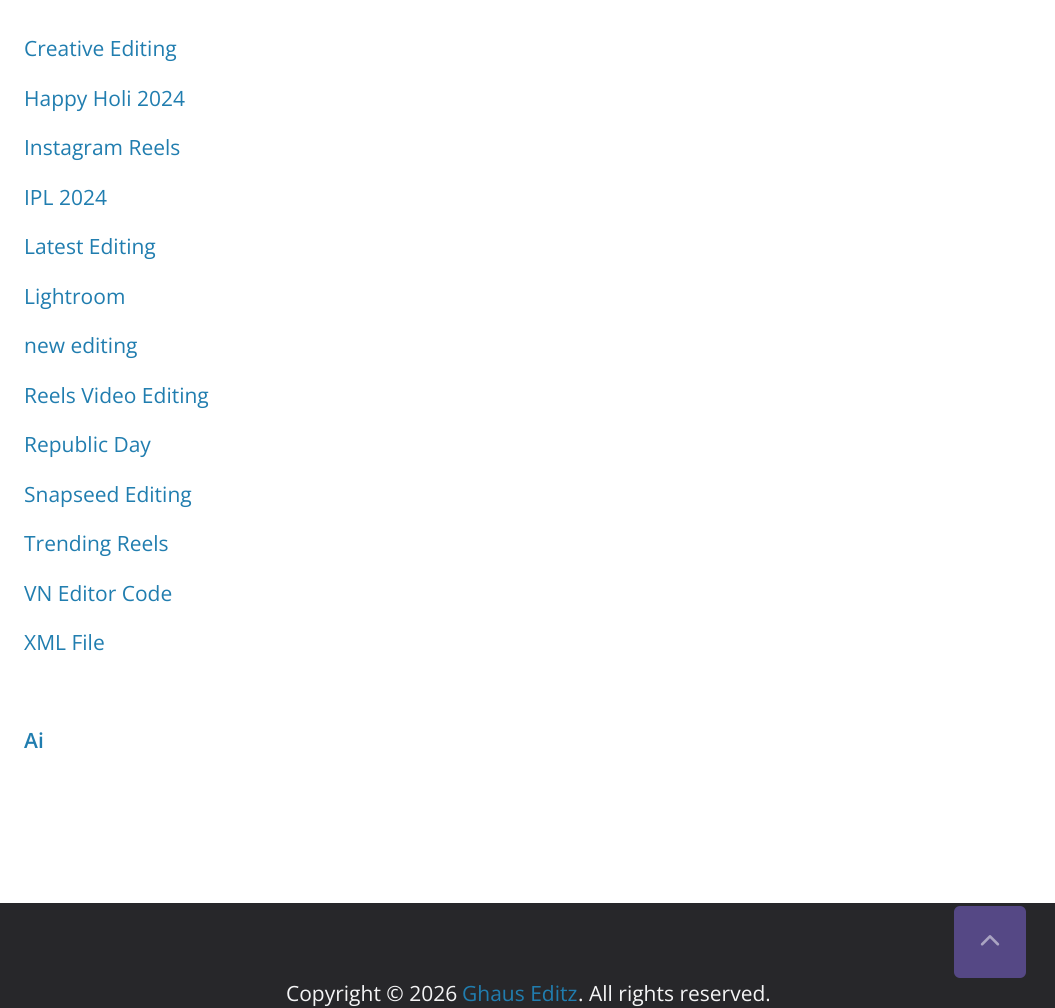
#include <cairo.h>
#include <math.h>
#include <stddef.h>

static cairo_t *ctx;

static void use_color(int r, int g, int b) {
    cairo_set_source_rgb(ctx, r / 255.0, g / 255.0, b / 255.0);
}

static void round_rect(double x, double y, double w, double h, double r) {
    cairo_new_sub_path(ctx);
    cairo_arc(ctx, x + w - r, y + h - r, r, 0, M_PI / 2);
    cairo_arc(ctx, x + r, y + h - r, r, M_PI / 2, M_PI);
    cairo_arc(ctx, x + r, y + r, r, M_PI, 1.5 * M_PI);
    cairo_arc(ctx, x + w - r, y + r, r, 1.5 * M_PI, 2 * M_PI);
    cairo_close_path(ctx);
}

static void picture(const char *path, double x, double y, double w, double h) {
    cairo_surface_t *image = cairo_image_surface_create_from_png(path);
    cairo_save(ctx);
    cairo_set_source_surface(ctx, image, x, y);
    cairo_rectangle(ctx, x, y, w, h);
    cairo_fill(ctx);
    cairo_restore(ctx);
    cairo_surface_destroy(image);
}

int main(void) {
    cairo_surface_t *surface = cairo_image_surface_create(CAIRO_FORMAT_RGB24, 1055, 1008);
    ctx = cairo_create(surface);
    cairo_font_options_t *options = cairo_font_options_create();
    cairo_font_options_set_hint_metrics(options, CAIRO_HINT_METRICS_OFF);
    cairo_font_options_set_hint_style(options, CAIRO_HINT_STYLE_NONE);
    cairo_set_font_options(ctx, options);
    cairo_set_miter_limit(ctx, 4);
    use_color(255, 255, 255);
    cairo_paint(ctx);
    cairo_select_font_face(ctx, "Open Sans", CAIRO_FONT_SLANT_NORMAL, CAIRO_FONT_WEIGHT_NORMAL);
    cairo_set_font_size(ctx, 21);
    use_color(32, 125, 175);
    cairo_move_to(ctx, 24, 56);
    cairo_show_text(ctx, "Creative Editing");
    cairo_move_to(ctx, 24, 106);
    cairo_show_text(ctx, "Happy Holi 2024");
    cairo_move_to(ctx, 24, 155);
    cairo_show_text(ctx, "Instagram Reels");
    cairo_move_to(ctx, 24, 205);
    cairo_show_text(ctx, "IPL 2024");
    cairo_move_to(ctx, 24, 254);
    cairo_show_text(ctx, "Latest Editing");
    cairo_move_to(ctx, 24, 304);
    cairo_show_text(ctx, "Lightroom");
    cairo_move_to(ctx, 24, 353);
    cairo_show_text(ctx, "new editing");
    cairo_move_to(ctx, 24, 403);
    cairo_show_text(ctx, "Reels Video Editing");
    cairo_move_to(ctx, 24, 452);
    cairo_show_text(ctx, "Republic Day");
    cairo_move_to(ctx, 24, 502);
    cairo_show_text(ctx, "Snapseed Editing");
    cairo_move_to(ctx, 24, 551);
    cairo_show_text(ctx, "Trending Reels");
    cairo_move_to(ctx, 24, 601);
    cairo_show_text(ctx, "VN Editor Code");
    cairo_move_to(ctx, 24, 650);
    cairo_show_text(ctx, "XML File");
    cairo_select_font_face(ctx, "Open Sans SemiBold", CAIRO_FONT_SLANT_NORMAL, CAIRO_FONT_WEIGHT_NORMAL);
    cairo_move_to(ctx, 24, 748);
    cairo_show_text(ctx, "Ai");
    use_color(39, 39, 42);
    cairo_rectangle(ctx, 0, 903, 1055, 105);
    cairo_fill(ctx);
    use_color(85, 72, 133);
    round_rect(954, 906, 72, 72, 6);
    cairo_fill(ctx);
    picture("img1.png", 980, 935, 20, 11);
    cairo_select_font_face(ctx, "Open Sans", CAIRO_FONT_SLANT_NORMAL, CAIRO_FONT_WEIGHT_NORMAL);
    use_color(244, 244, 245);
    cairo_move_to(ctx, 286, 1001);
    cairo_show_text(ctx, "Copyright © 2026");
    use_color(32, 125, 175);
    cairo_move_to(ctx, 462, 1001);
    cairo_show_text(ctx, "Ghaus Editz");
    use_color(244, 244, 245);
    cairo_move_to(ctx, 578, 1001);
    cairo_show_text(ctx, ". All rights reserved.");
    cairo_surface_write_to_png(surface, "result.png");
    cairo_font_options_destroy(options);
    cairo_destroy(ctx);
    cairo_surface_destroy(surface);
    return 0;
}
